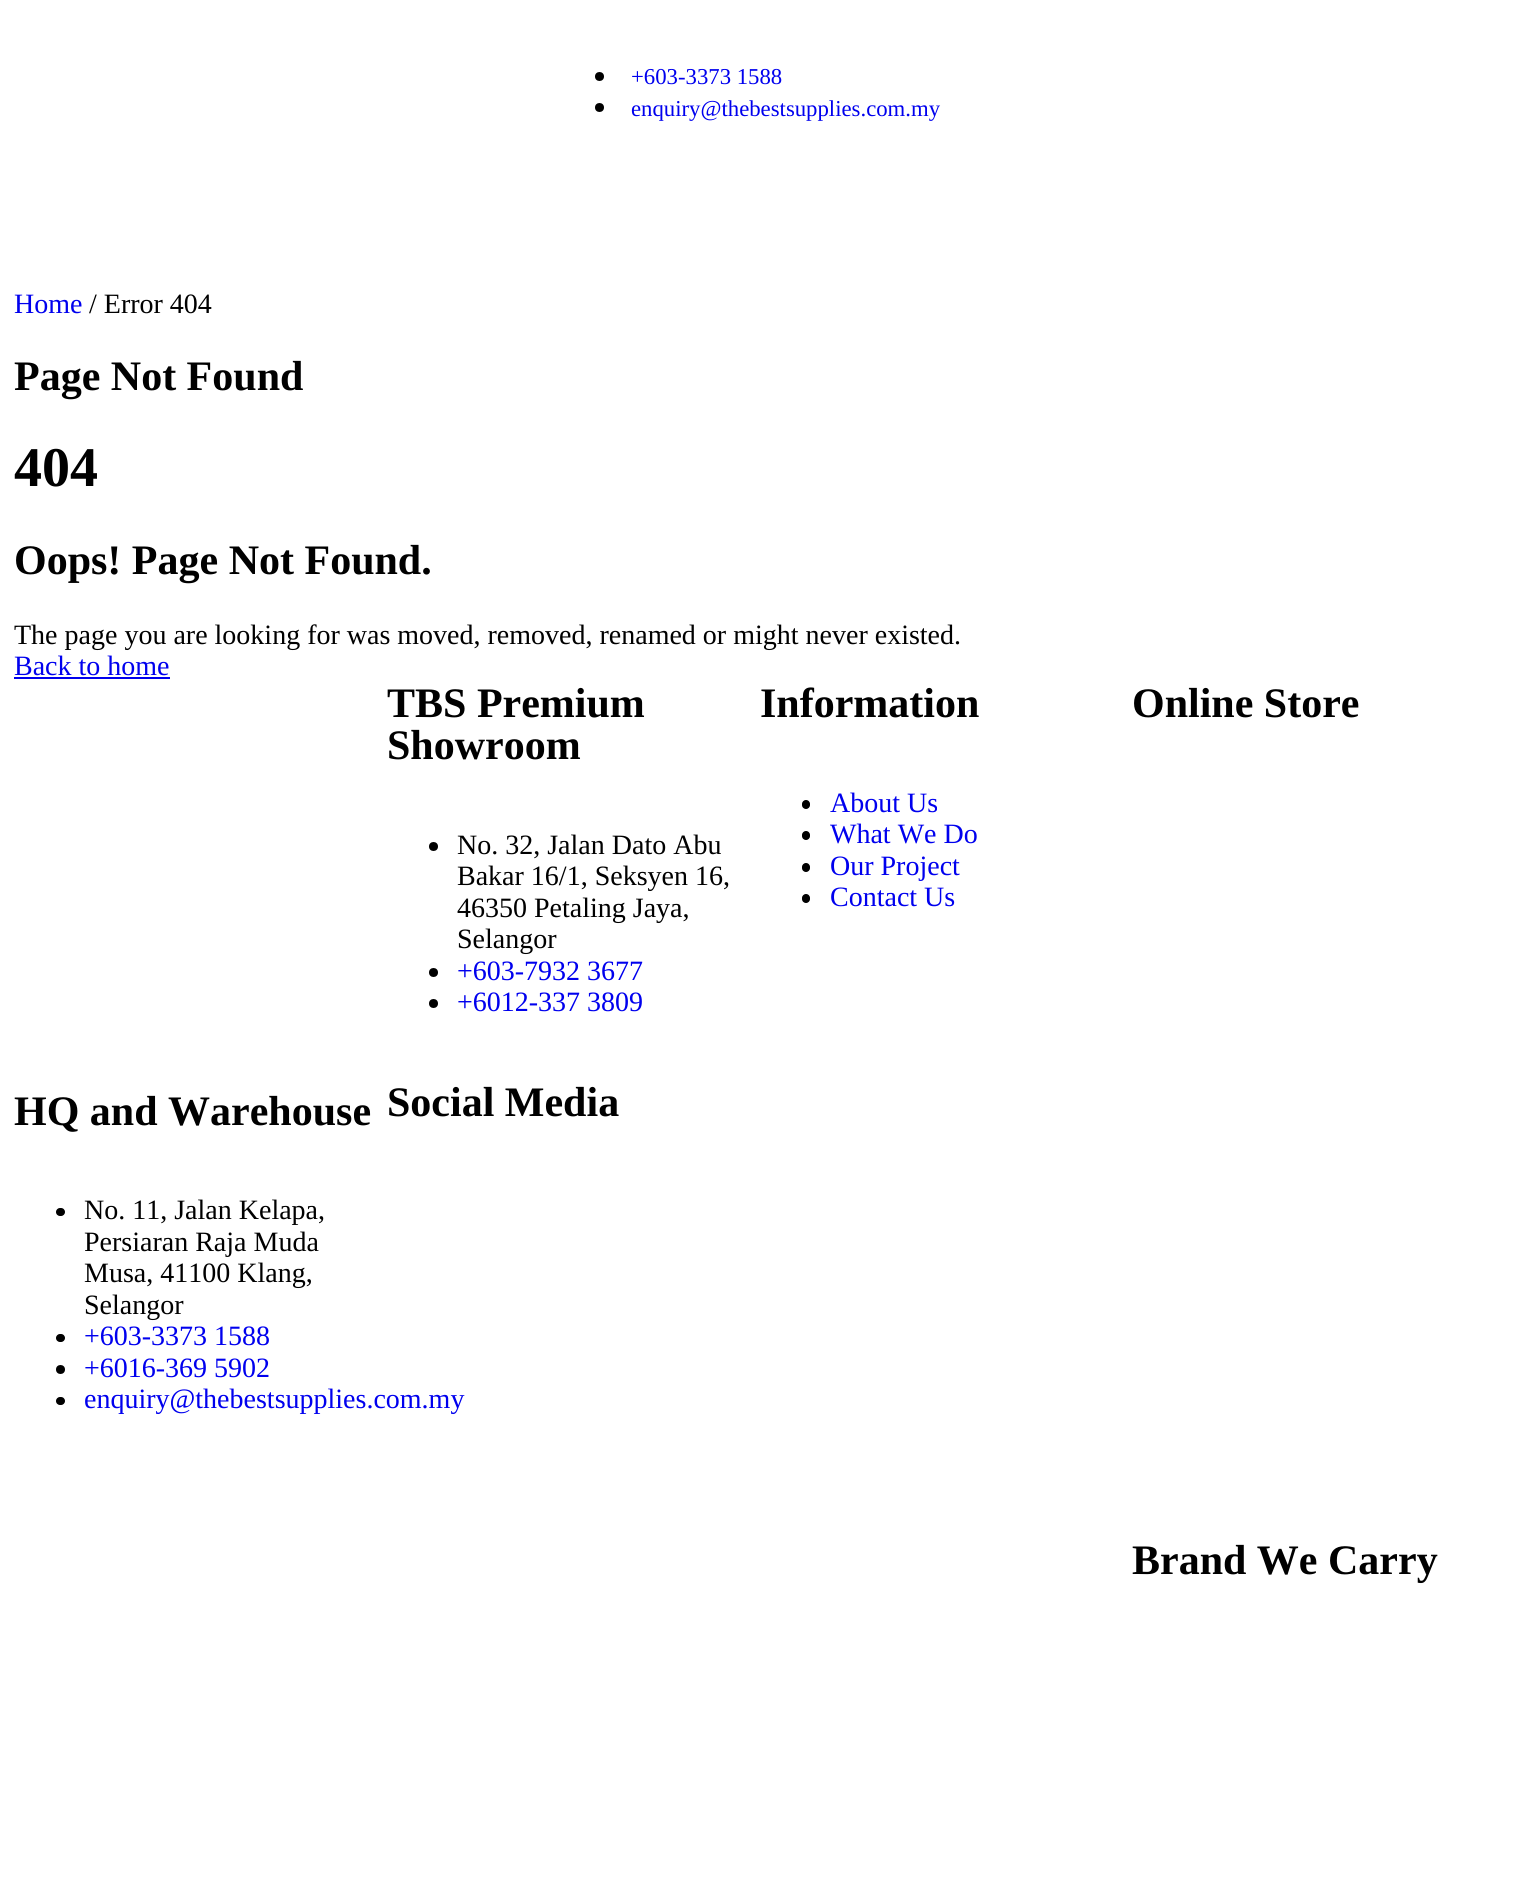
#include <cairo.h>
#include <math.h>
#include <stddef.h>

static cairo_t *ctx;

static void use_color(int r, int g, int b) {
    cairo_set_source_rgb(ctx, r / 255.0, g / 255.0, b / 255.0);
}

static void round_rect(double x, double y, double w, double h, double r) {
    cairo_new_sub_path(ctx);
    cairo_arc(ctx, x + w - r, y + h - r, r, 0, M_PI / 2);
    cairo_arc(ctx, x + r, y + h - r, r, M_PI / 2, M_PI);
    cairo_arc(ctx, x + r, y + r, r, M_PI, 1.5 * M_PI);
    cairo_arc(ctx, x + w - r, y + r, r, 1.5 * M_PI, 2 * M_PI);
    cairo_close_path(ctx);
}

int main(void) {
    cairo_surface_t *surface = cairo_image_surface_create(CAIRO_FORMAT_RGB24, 1519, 1883);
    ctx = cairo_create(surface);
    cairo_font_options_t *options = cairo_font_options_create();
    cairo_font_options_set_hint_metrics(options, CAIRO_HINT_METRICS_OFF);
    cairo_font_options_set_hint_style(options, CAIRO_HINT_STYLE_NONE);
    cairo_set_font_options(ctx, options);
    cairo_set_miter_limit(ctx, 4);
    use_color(255, 255, 255);
    cairo_paint(ctx);
    use_color(0, 0, 0);
    cairo_arc(ctx, 599.5, 76.5, 4.5, 0, 2 * M_PI);
    cairo_fill(ctx);
    cairo_select_font_face(ctx, "Liberation Serif", CAIRO_FONT_SLANT_NORMAL, CAIRO_FONT_WEIGHT_NORMAL);
    cairo_set_font_size(ctx, 22.75);
    use_color(0, 0, 238);
    cairo_move_to(ctx, 631, 84);
    cairo_show_text(ctx, "+603-3373 1588");
    use_color(0, 0, 0);
    cairo_new_path(ctx);
    cairo_arc(ctx, 599.5, 107.5, 4.5, 0, 2 * M_PI);
    cairo_fill(ctx);
    use_color(0, 0, 238);
    cairo_move_to(ctx, 631, 116);
    cairo_show_text(ctx, "enquiry@thebestsupplies.com.my");
    cairo_set_font_size(ctx, 28);
    cairo_move_to(ctx, 14, 313);
    cairo_show_text(ctx, "Home");
    use_color(0, 0, 0);
    cairo_move_to(ctx, 89, 313);
    cairo_show_text(ctx, "/ Error 404");
    cairo_select_font_face(ctx, "Liberation Serif", CAIRO_FONT_SLANT_NORMAL, CAIRO_FONT_WEIGHT_BOLD);
    cairo_set_font_size(ctx, 42);
    cairo_move_to(ctx, 14, 390);
    cairo_show_text(ctx, "Page Not Found");
    cairo_set_font_size(ctx, 56);
    cairo_move_to(ctx, 14, 486);
    cairo_show_text(ctx, "404");
    cairo_set_font_size(ctx, 42);
    cairo_move_to(ctx, 14, 574);
    cairo_show_text(ctx, "Oops! Page Not Found.");
    cairo_select_font_face(ctx, "Liberation Serif", CAIRO_FONT_SLANT_NORMAL, CAIRO_FONT_WEIGHT_NORMAL);
    cairo_set_font_size(ctx, 28);
    cairo_move_to(ctx, 14, 644);
    cairo_show_text(ctx, "The page you are looking for was moved, removed, renamed or might never existed.");
    use_color(0, 0, 238);
    cairo_move_to(ctx, 14, 675);
    cairo_show_text(ctx, "Back to home");
    cairo_rectangle(ctx, 14, 677, 156, 2);
    cairo_fill(ctx);
    cairo_select_font_face(ctx, "Liberation Serif", CAIRO_FONT_SLANT_NORMAL, CAIRO_FONT_WEIGHT_BOLD);
    cairo_set_font_size(ctx, 42);
    use_color(0, 0, 0);
    cairo_move_to(ctx, 14, 1125);
    cairo_show_text(ctx, "HQ and Warehouse");
    round_rect(56, 1208, 9, 8, 4);
    cairo_fill(ctx);
    cairo_select_font_face(ctx, "Liberation Serif", CAIRO_FONT_SLANT_NORMAL, CAIRO_FONT_WEIGHT_NORMAL);
    cairo_set_font_size(ctx, 28);
    cairo_move_to(ctx, 84, 1219);
    cairo_show_text(ctx, "No. 11, Jalan Kelapa,");
    cairo_move_to(ctx, 84, 1251);
    cairo_show_text(ctx, "Persiaran Raja Muda");
    cairo_move_to(ctx, 84, 1282);
    cairo_show_text(ctx, "Musa, 41100 Klang,");
    cairo_move_to(ctx, 84, 1314);
    cairo_show_text(ctx, "Selangor");
    round_rect(56, 1334, 9, 8, 4);
    cairo_fill(ctx);
    use_color(0, 0, 238);
    cairo_move_to(ctx, 84, 1345);
    cairo_show_text(ctx, "+603-3373 1588");
    use_color(0, 0, 0);
    cairo_new_path(ctx);
    cairo_arc(ctx, 60.5, 1369.5, 4.5, 0, 2 * M_PI);
    cairo_fill(ctx);
    use_color(0, 0, 238);
    cairo_move_to(ctx, 84, 1377);
    cairo_show_text(ctx, "+6016-369 5902");
    use_color(0, 0, 0);
    round_rect(56, 1397, 9, 8, 4);
    cairo_fill(ctx);
    use_color(0, 0, 238);
    cairo_move_to(ctx, 84, 1408);
    cairo_show_text(ctx, "enquiry@thebestsupplies.com.my");
    cairo_select_font_face(ctx, "Liberation Serif", CAIRO_FONT_SLANT_NORMAL, CAIRO_FONT_WEIGHT_BOLD);
    cairo_set_font_size(ctx, 42);
    use_color(0, 0, 0);
    cairo_move_to(ctx, 387, 717);
    cairo_show_text(ctx, "TBS Premium");
    cairo_move_to(ctx, 387, 759);
    cairo_show_text(ctx, "Showroom");
    cairo_new_path(ctx);
    cairo_arc(ctx, 433.5, 846.5, 4.5, 0, 2 * M_PI);
    cairo_fill(ctx);
    cairo_select_font_face(ctx, "Liberation Serif", CAIRO_FONT_SLANT_NORMAL, CAIRO_FONT_WEIGHT_NORMAL);
    cairo_set_font_size(ctx, 28);
    cairo_move_to(ctx, 457, 854);
    cairo_show_text(ctx, "No. 32, Jalan Dato Abu");
    cairo_move_to(ctx, 457, 885);
    cairo_show_text(ctx, "Bakar 16/1, Seksyen 16,");
    cairo_move_to(ctx, 457, 917);
    cairo_show_text(ctx, "46350 Petaling Jaya,");
    cairo_move_to(ctx, 457, 948);
    cairo_show_text(ctx, "Selangor");
    cairo_new_path(ctx);
    cairo_arc(ctx, 433.5, 972.5, 4.5, 0, 2 * M_PI);
    cairo_fill(ctx);
    use_color(0, 0, 238);
    cairo_move_to(ctx, 457, 980);
    cairo_show_text(ctx, "+603-7932 3677");
    use_color(0, 0, 0);
    cairo_new_path(ctx);
    cairo_arc(ctx, 433.5, 1003.5, 4.5, 0, 2 * M_PI);
    cairo_fill(ctx);
    use_color(0, 0, 238);
    cairo_move_to(ctx, 457, 1011);
    cairo_show_text(ctx, "+6012-337 3809");
    cairo_select_font_face(ctx, "Liberation Serif", CAIRO_FONT_SLANT_NORMAL, CAIRO_FONT_WEIGHT_BOLD);
    cairo_set_font_size(ctx, 42);
    use_color(0, 0, 0);
    cairo_move_to(ctx, 387, 1116);
    cairo_show_text(ctx, "Social Media");
    cairo_move_to(ctx, 760, 717);
    cairo_show_text(ctx, "Information");
    round_rect(802, 800, 8, 9, 4);
    cairo_fill(ctx);
    cairo_select_font_face(ctx, "Liberation Serif", CAIRO_FONT_SLANT_NORMAL, CAIRO_FONT_WEIGHT_NORMAL);
    cairo_set_font_size(ctx, 28);
    use_color(0, 0, 238);
    cairo_move_to(ctx, 830, 812);
    cairo_show_text(ctx, "About Us");
    use_color(0, 0, 0);
    round_rect(802, 831, 8, 9, 4);
    cairo_fill(ctx);
    use_color(0, 0, 238);
    cairo_move_to(ctx, 830, 843);
    cairo_show_text(ctx, "What We Do");
    use_color(0, 0, 0);
    round_rect(802, 863, 8, 9, 4);
    cairo_fill(ctx);
    use_color(0, 0, 238);
    cairo_move_to(ctx, 830, 875);
    cairo_show_text(ctx, "Our Project");
    use_color(0, 0, 0);
    round_rect(802, 894, 8, 9, 4);
    cairo_fill(ctx);
    use_color(0, 0, 238);
    cairo_move_to(ctx, 830, 906);
    cairo_show_text(ctx, "Contact Us");
    cairo_select_font_face(ctx, "Liberation Serif", CAIRO_FONT_SLANT_NORMAL, CAIRO_FONT_WEIGHT_BOLD);
    cairo_set_font_size(ctx, 42);
    use_color(0, 0, 0);
    cairo_move_to(ctx, 1132, 717);
    cairo_show_text(ctx, "Online Store");
    cairo_move_to(ctx, 1132, 1574);
    cairo_show_text(ctx, "Brand We Carry");
    cairo_surface_write_to_png(surface, "result.png");
    cairo_font_options_destroy(options);
    cairo_destroy(ctx);
    cairo_surface_destroy(surface);
    return 0;
}
